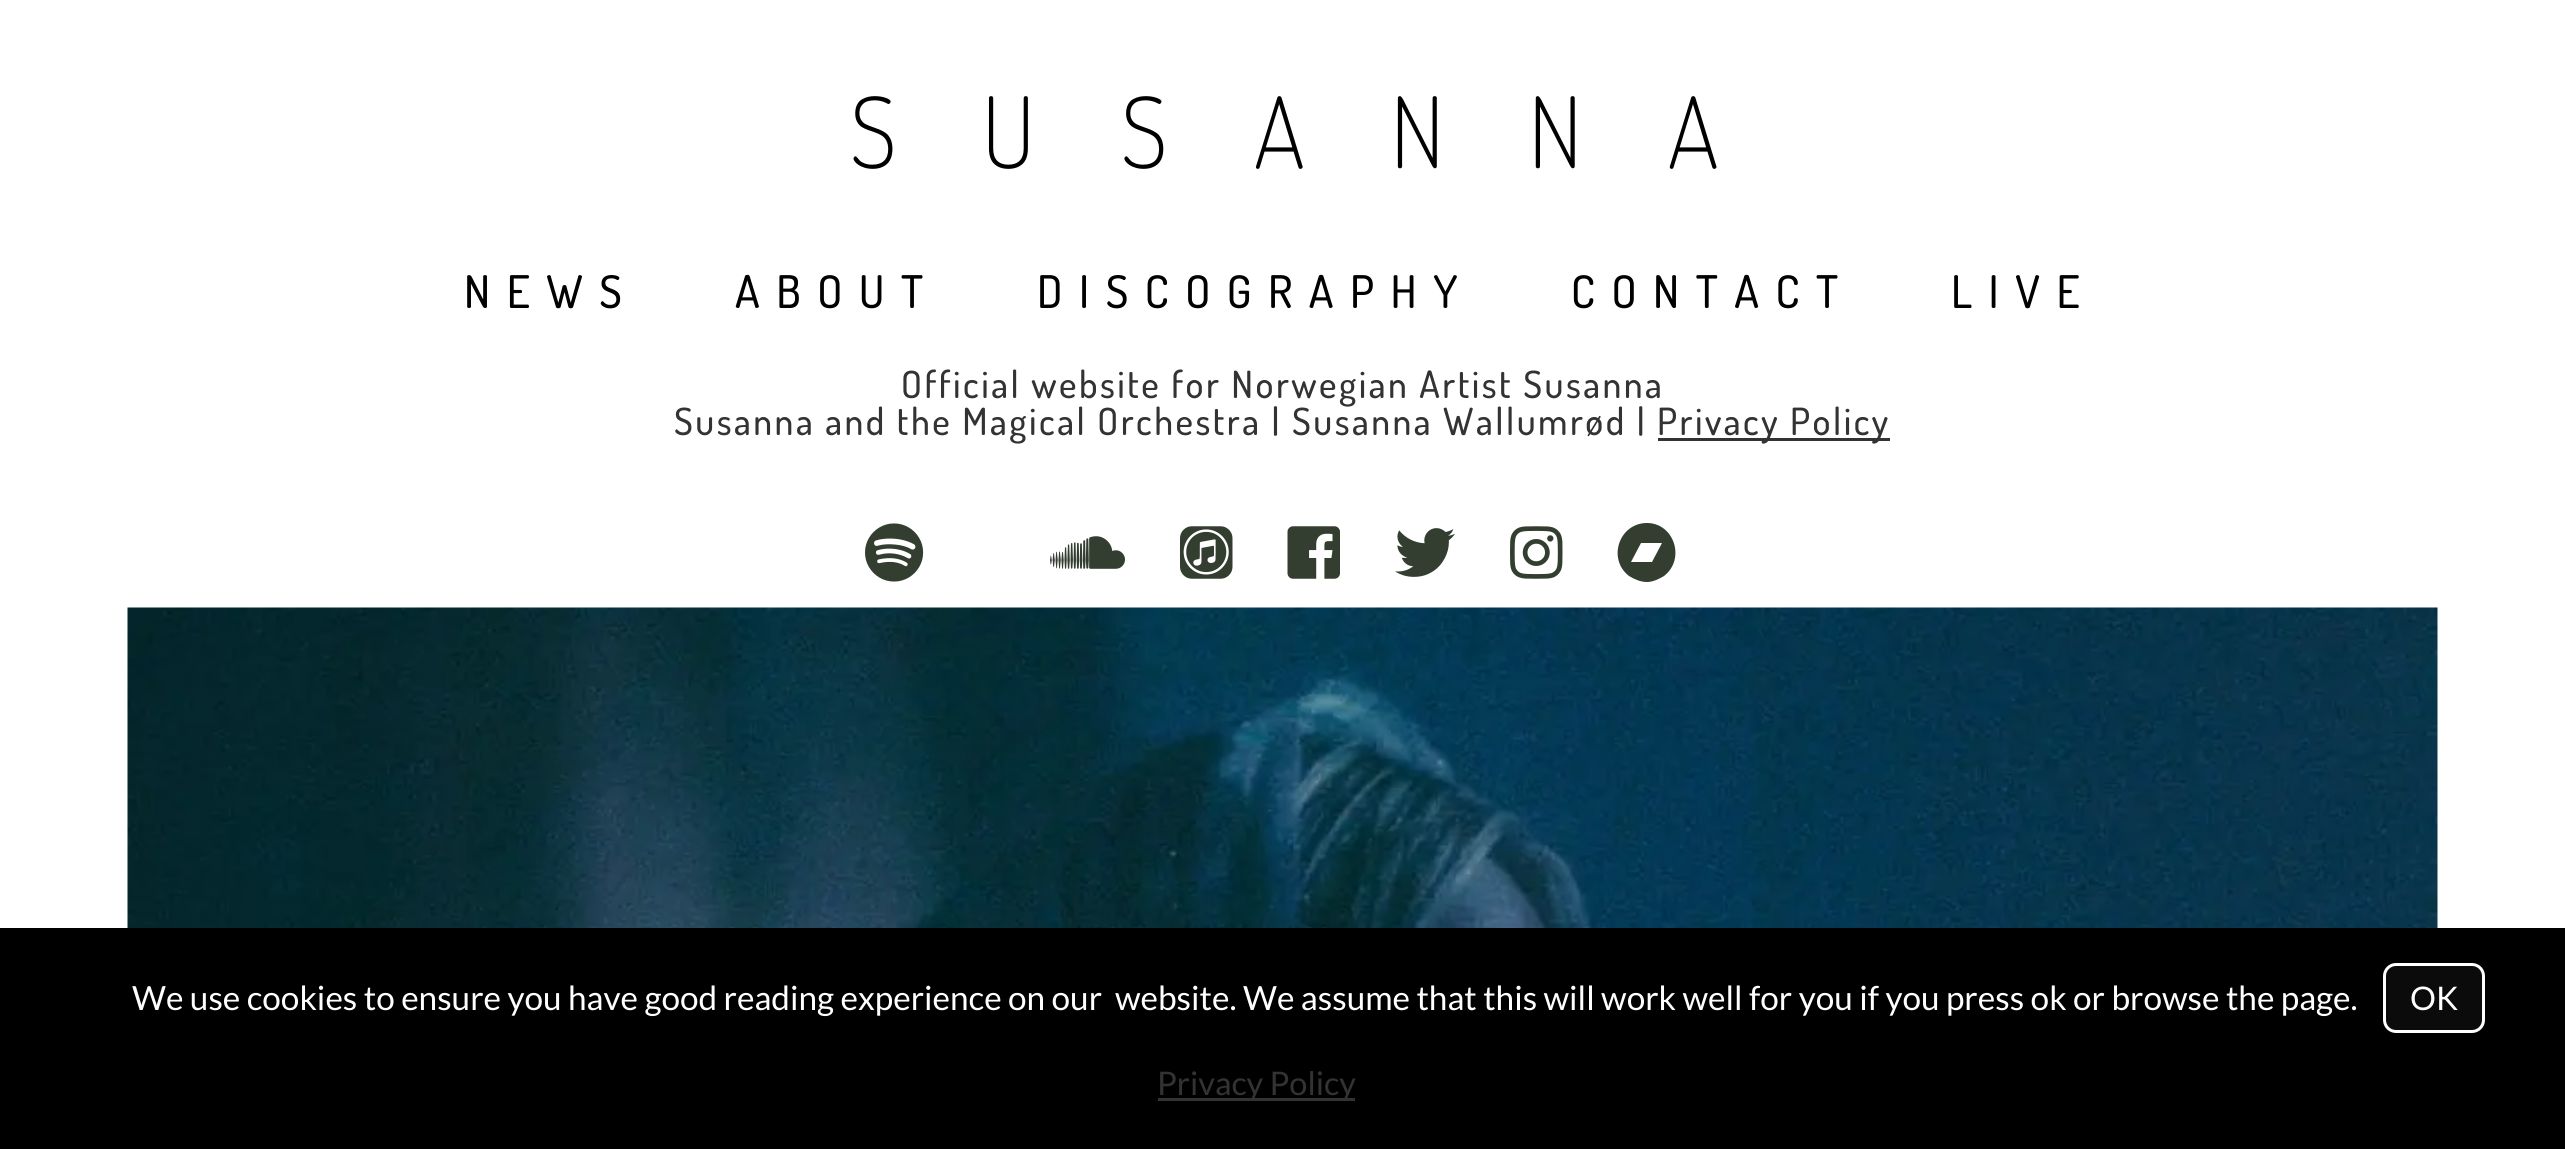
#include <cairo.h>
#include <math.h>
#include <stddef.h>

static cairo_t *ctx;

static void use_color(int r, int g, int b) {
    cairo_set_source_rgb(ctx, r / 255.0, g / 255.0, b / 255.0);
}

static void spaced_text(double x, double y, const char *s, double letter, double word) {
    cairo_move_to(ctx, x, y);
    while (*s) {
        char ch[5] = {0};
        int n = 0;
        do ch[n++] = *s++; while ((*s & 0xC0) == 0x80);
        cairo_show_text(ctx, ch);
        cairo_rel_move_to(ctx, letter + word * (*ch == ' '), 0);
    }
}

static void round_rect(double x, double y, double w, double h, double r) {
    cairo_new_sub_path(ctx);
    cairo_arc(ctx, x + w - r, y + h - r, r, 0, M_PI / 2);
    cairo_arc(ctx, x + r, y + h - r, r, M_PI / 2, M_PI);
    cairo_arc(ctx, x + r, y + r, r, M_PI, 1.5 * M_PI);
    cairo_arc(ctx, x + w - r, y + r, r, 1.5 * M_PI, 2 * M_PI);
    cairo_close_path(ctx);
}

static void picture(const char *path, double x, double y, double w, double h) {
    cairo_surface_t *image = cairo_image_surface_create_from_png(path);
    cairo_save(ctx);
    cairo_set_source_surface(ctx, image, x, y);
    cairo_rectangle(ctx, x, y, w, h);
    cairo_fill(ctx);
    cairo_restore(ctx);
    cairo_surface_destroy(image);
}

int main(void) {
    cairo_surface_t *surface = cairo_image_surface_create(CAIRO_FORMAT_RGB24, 2565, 1149);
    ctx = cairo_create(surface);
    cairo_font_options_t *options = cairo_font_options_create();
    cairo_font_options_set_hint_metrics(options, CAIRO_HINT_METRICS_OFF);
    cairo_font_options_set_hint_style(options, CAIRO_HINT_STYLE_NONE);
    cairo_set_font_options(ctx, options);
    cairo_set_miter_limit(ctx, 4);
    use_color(255, 255, 255);
    cairo_paint(ctx);
    picture("img1.png", 853, 96, 864, 73);
    cairo_select_font_face(ctx, "Dosis Medium", CAIRO_FONT_SLANT_NORMAL, CAIRO_FONT_WEIGHT_NORMAL);
    cairo_set_font_size(ctx, 45);
    use_color(0, 0, 0);
    spaced_text(464, 308, "NEWS", 16.5, 0);
    spaced_text(735, 308, "ABOUT", 16.5, 0);
    spaced_text(1037, 308, "DISCOGRAPHY", 16.5, 0);
    spaced_text(1571, 308, "CONTACT", 16.5, 0);
    spaced_text(1951, 308, "LIVE", 16.5, 0);
    cairo_set_font_size(ctx, 37.5);
    use_color(51, 51, 51);
    spaced_text(901, 398, "Official website for Norwegian Artist Susanna", 2.5, 0);
    spaced_text(674, 435, "Susanna and the Magical Orchestra | Susanna Wallumrød |", 2.5, 0);
    cairo_rectangle(ctx, 1658, 438, 232, 3);
    cairo_fill(ctx);
    spaced_text(1657, 435, "Privacy Policy", 2.5, 0);
    picture("img2.png", 865, 523, 59, 59);
    picture("img3.png", 1050, 536, 75, 33);
    picture("img4.png", 1180, 526, 53, 53);
    picture("img5.png", 1287, 526, 53, 53);
    picture("img6.png", 1395, 528, 60, 49);
    picture("img7.png", 1510, 526, 53, 53);
    use_color(51, 62, 48);
    cairo_new_path(ctx);
    cairo_move_to(ctx, 1647, 523);
    cairo_curve_to(ctx, 1619, 523, 1607, 559, 1629, 576);
    cairo_curve_to(ctx, 1634, 579, 1640, 582, 1647, 582);
    cairo_curve_to(ctx, 1653, 582, 1659, 579, 1664, 576);
    cairo_curve_to(ctx, 1686, 559, 1674, 523, 1647, 523);
    cairo_close_path(ctx);
    cairo_move_to(ctx, 1652, 562);
    cairo_line_to(ctx, 1631, 562);
    cairo_line_to(ctx, 1641, 543);
    cairo_line_to(ctx, 1662, 543);
    cairo_close_path(ctx);
    cairo_fill(ctx);
    picture("img8.png", 127, 607, 2311, 321);
    use_color(0, 0, 0);
    cairo_rectangle(ctx, 0, 928, 2565, 221);
    cairo_fill(ctx);
    cairo_select_font_face(ctx, "Lato", CAIRO_FONT_SLANT_NORMAL, CAIRO_FONT_WEIGHT_NORMAL);
    cairo_set_font_size(ctx, 33.33);
    use_color(255, 255, 255);
    cairo_move_to(ctx, 132, 1010);
    cairo_show_text(ctx, "We use cookies to ensure you have good reading experience on our  website. We assume that this will work well for you if you press ok or browse the page.");
    use_color(11, 11, 11);
    round_rect(2384.5, 964.5, 99, 67, 11.5);
    cairo_fill_preserve(ctx);
    use_color(255, 255, 255);
    cairo_set_line_width(ctx, 3);
    cairo_stroke(ctx);
    cairo_set_font_size(ctx, 32.5);
    cairo_move_to(ctx, 2410, 1010);
    cairo_show_text(ctx, "OK");
    use_color(51, 51, 51);
    cairo_rectangle(ctx, 1158, 1098, 197, 3);
    cairo_fill(ctx);
    cairo_move_to(ctx, 1157, 1095);
    cairo_show_text(ctx, "Privacy Policy");
    cairo_surface_write_to_png(surface, "result.png");
    cairo_font_options_destroy(options);
    cairo_destroy(ctx);
    cairo_surface_destroy(surface);
    return 0;
}
